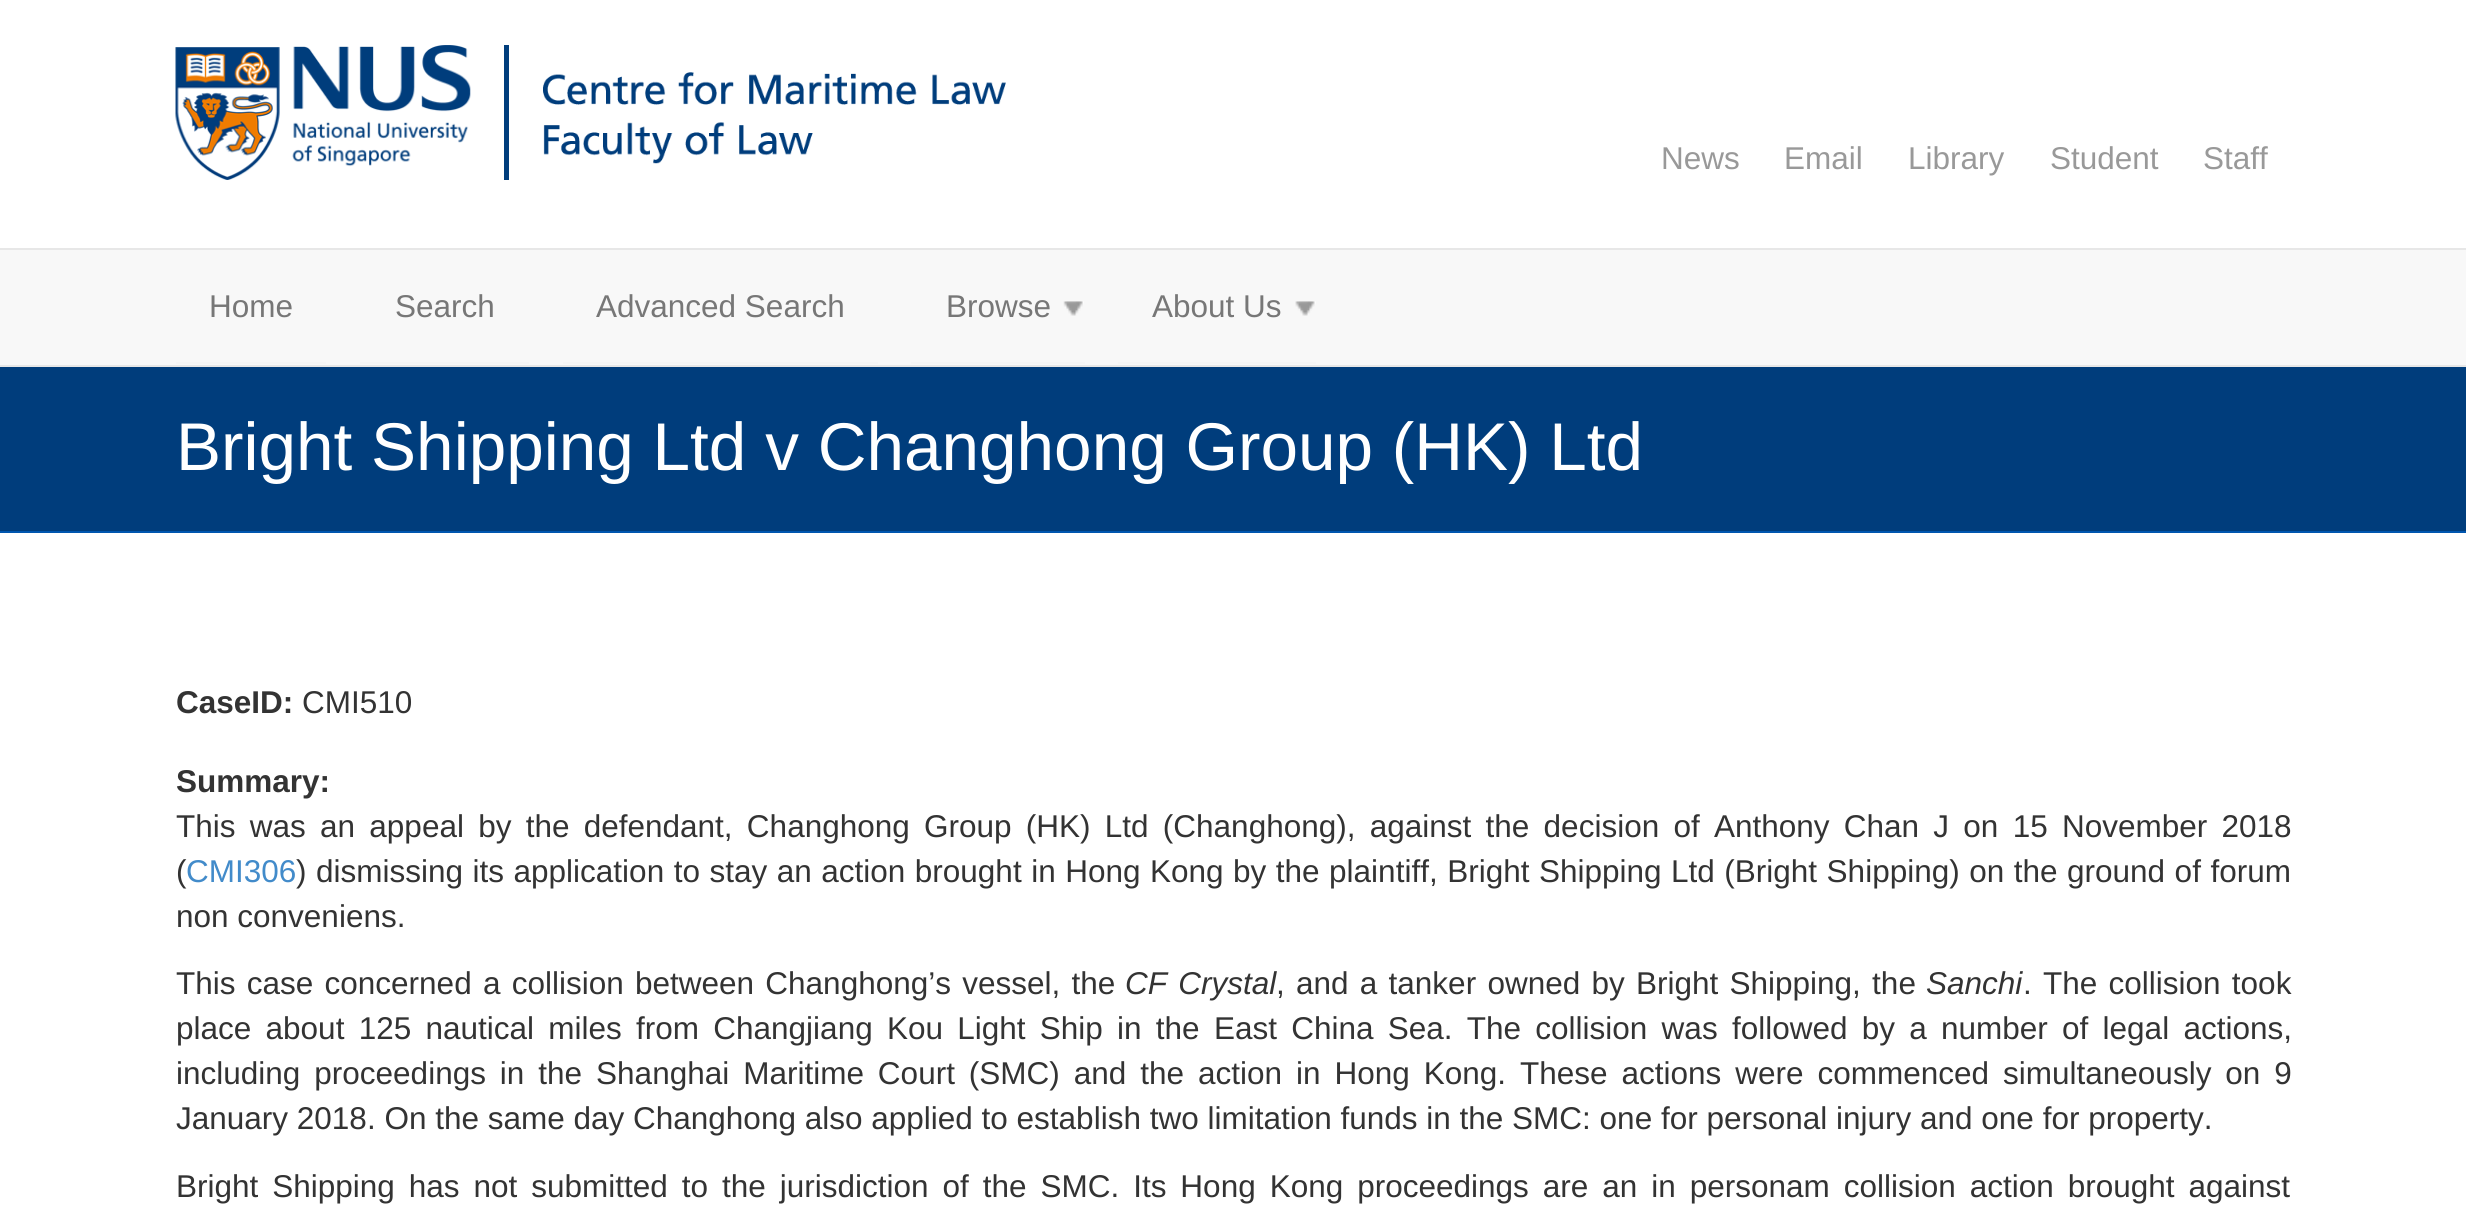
#include <cairo.h>
#include <math.h>
#include <stddef.h>

static cairo_t *ctx;

static void use_color(int r, int g, int b) {
    cairo_set_source_rgb(ctx, r / 255.0, g / 255.0, b / 255.0);
}

static void spaced_text(double x, double y, const char *s, double letter, double word) {
    cairo_move_to(ctx, x, y);
    while (*s) {
        char ch[5] = {0};
        int n = 0;
        do ch[n++] = *s++; while ((*s & 0xC0) == 0x80);
        cairo_show_text(ctx, ch);
        cairo_rel_move_to(ctx, letter + word * (*ch == ' '), 0);
    }
}

static void picture(const char *path, double x, double y, double w, double h) {
    cairo_surface_t *image = cairo_image_surface_create_from_png(path);
    cairo_save(ctx);
    cairo_set_source_surface(ctx, image, x, y);
    cairo_rectangle(ctx, x, y, w, h);
    cairo_fill(ctx);
    cairo_restore(ctx);
    cairo_surface_destroy(image);
}

int main(void) {
    cairo_surface_t *surface = cairo_image_surface_create(CAIRO_FORMAT_RGB24, 2466, 1210);
    ctx = cairo_create(surface);
    cairo_font_options_t *options = cairo_font_options_create();
    cairo_font_options_set_hint_metrics(options, CAIRO_HINT_METRICS_OFF);
    cairo_font_options_set_hint_style(options, CAIRO_HINT_STYLE_NONE);
    cairo_set_font_options(ctx, options);
    cairo_set_miter_limit(ctx, 4);
    use_color(255, 255, 255);
    cairo_paint(ctx);
    picture("img1.png", 175, 45, 296, 135);
    use_color(0, 61, 124);
    cairo_rectangle(ctx, 504, 45, 5, 135);
    cairo_fill(ctx);
    picture("img2.png", 543, 72, 463, 92);
    cairo_select_font_face(ctx, "Liberation Sans", CAIRO_FONT_SLANT_NORMAL, CAIRO_FONT_WEIGHT_NORMAL);
    cairo_set_font_size(ctx, 31.5);
    use_color(153, 153, 153);
    cairo_move_to(ctx, 1661, 169);
    cairo_show_text(ctx, "News");
    cairo_move_to(ctx, 1784, 169);
    cairo_show_text(ctx, "Email");
    cairo_move_to(ctx, 1908, 169);
    cairo_show_text(ctx, "Library");
    cairo_move_to(ctx, 2050, 169);
    cairo_show_text(ctx, "Student");
    cairo_move_to(ctx, 2203, 169);
    cairo_show_text(ctx, "Staff");
    use_color(248, 248, 248);
    cairo_rectangle(ctx, 0, 250, 2466, 115);
    cairo_fill(ctx);
    use_color(231, 231, 231);
    cairo_rectangle(ctx, 0, 248, 2466, 2);
    cairo_fill(ctx);
    cairo_rectangle(ctx, 0, 365, 2466, 2);
    cairo_fill(ctx);
    use_color(245, 245, 245);
    cairo_rectangle(ctx, 176, 362, 150, 2);
    cairo_fill(ctx);
    use_color(119, 119, 119);
    cairo_move_to(ctx, 209, 317);
    cairo_show_text(ctx, "Home");
    use_color(245, 245, 245);
    cairo_rectangle(ctx, 360, 362, 169, 2);
    cairo_fill(ctx);
    use_color(119, 119, 119);
    cairo_move_to(ctx, 395, 317);
    cairo_show_text(ctx, "Search");
    use_color(245, 245, 245);
    cairo_rectangle(ctx, 563, 362, 315, 2);
    cairo_fill(ctx);
    use_color(119, 119, 119);
    cairo_move_to(ctx, 596, 317);
    cairo_show_text(ctx, "Advanced Search");
    use_color(245, 245, 245);
    cairo_rectangle(ctx, 911, 362, 174, 2);
    cairo_fill(ctx);
    use_color(119, 119, 119);
    cairo_move_to(ctx, 946, 317);
    cairo_show_text(ctx, "Browse");
    picture("img3.png", 1063, 301, 21, 15);
    use_color(245, 245, 245);
    cairo_rectangle(ctx, 1118, 362, 198, 2);
    cairo_fill(ctx);
    use_color(119, 119, 119);
    cairo_move_to(ctx, 1152, 317);
    cairo_show_text(ctx, "About Us");
    picture("img4.png", 1295, 301, 21, 15);
    use_color(0, 61, 124);
    cairo_rectangle(ctx, 0, 367, 2466, 164);
    cairo_fill(ctx);
    use_color(0, 86, 175);
    cairo_rectangle(ctx, 0, 531, 2466, 2);
    cairo_fill(ctx);
    cairo_set_font_size(ctx, 67.5);
    use_color(255, 255, 255);
    cairo_move_to(ctx, 176, 470);
    cairo_show_text(ctx, "Bright Shipping Ltd v Changhong Group (HK) Ltd");
    cairo_select_font_face(ctx, "Liberation Sans", CAIRO_FONT_SLANT_NORMAL, CAIRO_FONT_WEIGHT_BOLD);
    cairo_set_font_size(ctx, 31.5);
    use_color(51, 51, 51);
    cairo_move_to(ctx, 176, 713);
    cairo_show_text(ctx, "CaseID:");
    cairo_select_font_face(ctx, "Liberation Sans", CAIRO_FONT_SLANT_NORMAL, CAIRO_FONT_WEIGHT_NORMAL);
    cairo_move_to(ctx, 302, 713);
    cairo_show_text(ctx, "CMI510");
    cairo_select_font_face(ctx, "Liberation Sans", CAIRO_FONT_SLANT_NORMAL, CAIRO_FONT_WEIGHT_BOLD);
    cairo_move_to(ctx, 176, 792);
    cairo_show_text(ctx, "Summary:");
    cairo_select_font_face(ctx, "Liberation Sans", CAIRO_FONT_SLANT_NORMAL, CAIRO_FONT_WEIGHT_NORMAL);
    spaced_text(176, 837, "This was an appeal by the defendant, Changhong Group (HK) Ltd (Changhong), against the decision of Anthony Chan J on 15 November 2018", 0, 5.5);
    cairo_move_to(ctx, 176, 882);
    cairo_show_text(ctx, "(");
    use_color(66, 139, 202);
    cairo_move_to(ctx, 186, 882);
    cairo_show_text(ctx, "CMI306");
    use_color(51, 51, 51);
    spaced_text(296, 882, ") dismissing its application to stay an action brought in Hong Kong by the plaintiff, Bright Shipping Ltd (Bright Shipping) on the ground of forum", 0, 0.75);
    cairo_move_to(ctx, 176, 927);
    cairo_show_text(ctx, "non conveniens.");
    spaced_text(176, 994, "This case concerned a collision between Changhong’s vessel, the", 0, 2.5);
    cairo_select_font_face(ctx, "Liberation Sans", CAIRO_FONT_SLANT_ITALIC, CAIRO_FONT_WEIGHT_NORMAL);
    spaced_text(1125, 994, "CF Crystal", 0, 2.5);
    cairo_select_font_face(ctx, "Liberation Sans", CAIRO_FONT_SLANT_NORMAL, CAIRO_FONT_WEIGHT_NORMAL);
    spaced_text(1276, 994, ", and a tanker owned by Bright Shipping, the", 0, 2.5);
    cairo_select_font_face(ctx, "Liberation Sans", CAIRO_FONT_SLANT_ITALIC, CAIRO_FONT_WEIGHT_NORMAL);
    cairo_move_to(ctx, 1926, 994);
    cairo_show_text(ctx, "Sanchi");
    cairo_select_font_face(ctx, "Liberation Sans", CAIRO_FONT_SLANT_NORMAL, CAIRO_FONT_WEIGHT_NORMAL);
    spaced_text(2023, 994, ". The collision took", 0, 2.5);
    spaced_text(176, 1039, "place about 125 nautical miles from Changjiang Kou Light Ship in the East China Sea. The collision was followed by a number of legal actions,", 0, 5.5);
    spaced_text(176, 1084, "including proceedings in the Shanghai Maritime Court (SMC) and the action in Hong Kong. These actions were commenced simultaneously on 9", 0, 5.2);
    cairo_move_to(ctx, 176, 1129);
    cairo_show_text(ctx, "January 2018. On the same day Changhong also applied to establish two limitation funds in the SMC: one for personal injury and one for property.");
    spaced_text(176, 1197, "Bright Shipping has not submitted to the jurisdiction of the SMC. Its Hong Kong proceedings are an in personam collision action brought against", 0, 5.2);
    cairo_surface_write_to_png(surface, "result.png");
    cairo_font_options_destroy(options);
    cairo_destroy(ctx);
    cairo_surface_destroy(surface);
    return 0;
}
